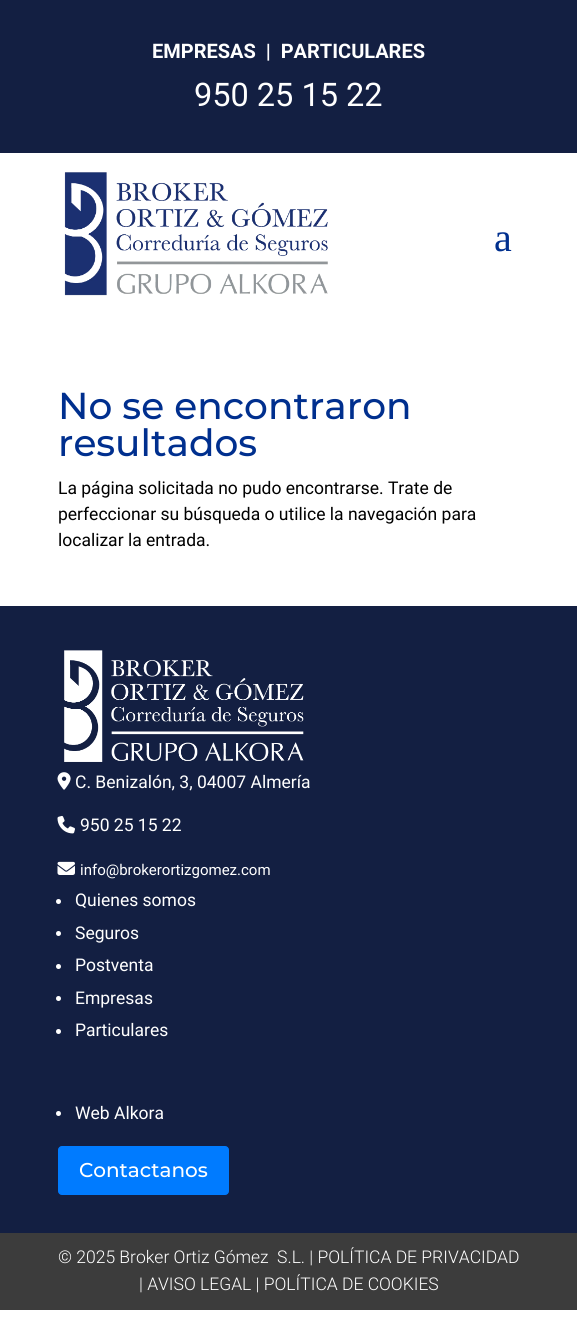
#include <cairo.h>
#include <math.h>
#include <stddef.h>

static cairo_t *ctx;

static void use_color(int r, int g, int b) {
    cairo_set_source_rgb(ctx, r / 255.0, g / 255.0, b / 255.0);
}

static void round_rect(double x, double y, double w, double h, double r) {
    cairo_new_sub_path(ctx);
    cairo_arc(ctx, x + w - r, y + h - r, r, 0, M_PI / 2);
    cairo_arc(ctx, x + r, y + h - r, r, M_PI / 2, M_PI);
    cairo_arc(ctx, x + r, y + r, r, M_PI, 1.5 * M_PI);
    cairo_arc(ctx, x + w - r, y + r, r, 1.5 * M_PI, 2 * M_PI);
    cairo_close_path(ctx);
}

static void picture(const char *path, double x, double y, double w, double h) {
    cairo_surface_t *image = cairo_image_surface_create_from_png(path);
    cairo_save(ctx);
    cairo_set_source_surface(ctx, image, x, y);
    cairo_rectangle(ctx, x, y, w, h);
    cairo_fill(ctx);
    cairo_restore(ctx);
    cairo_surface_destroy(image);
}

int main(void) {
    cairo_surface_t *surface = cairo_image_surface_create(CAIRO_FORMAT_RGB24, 577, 1333);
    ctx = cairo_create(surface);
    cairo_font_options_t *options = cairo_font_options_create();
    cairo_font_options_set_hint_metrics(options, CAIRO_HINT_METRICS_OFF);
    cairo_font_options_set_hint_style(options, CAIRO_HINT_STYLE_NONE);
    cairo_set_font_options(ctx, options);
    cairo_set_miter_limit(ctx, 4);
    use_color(255, 255, 255);
    cairo_paint(ctx);
    use_color(19, 31, 66);
    cairo_rectangle(ctx, 0, 0, 577, 153);
    cairo_fill(ctx);
    cairo_select_font_face(ctx, "Roboto", CAIRO_FONT_SLANT_NORMAL, CAIRO_FONT_WEIGHT_BOLD);
    cairo_set_font_size(ctx, 20);
    use_color(255, 255, 255);
    cairo_move_to(ctx, 152, 58);
    cairo_show_text(ctx, "EMPRESAS  |  PARTICULARES");
    cairo_select_font_face(ctx, "Roboto", CAIRO_FONT_SLANT_NORMAL, CAIRO_FONT_WEIGHT_NORMAL);
    cairo_set_font_size(ctx, 32.5);
    cairo_move_to(ctx, 194, 106);
    cairo_show_text(ctx, "950 25 15 22");
    picture("img1.png", 64, 172, 264, 124);
    cairo_select_font_face(ctx, "Liberation Serif", CAIRO_FONT_SLANT_NORMAL, CAIRO_FONT_WEIGHT_NORMAL);
    cairo_set_font_size(ctx, 40);
    use_color(0, 47, 142);
    cairo_move_to(ctx, 494, 251);
    cairo_show_text(ctx, "a");
    cairo_select_font_face(ctx, "Montserrat Medium", CAIRO_FONT_SLANT_NORMAL, CAIRO_FONT_WEIGHT_NORMAL);
    cairo_set_font_size(ctx, 37.5);
    cairo_move_to(ctx, 58, 419);
    cairo_show_text(ctx, "No se encontraron");
    cairo_move_to(ctx, 58, 456);
    cairo_show_text(ctx, "resultados");
    cairo_select_font_face(ctx, "Roboto", CAIRO_FONT_SLANT_NORMAL, CAIRO_FONT_WEIGHT_NORMAL);
    cairo_set_font_size(ctx, 17.5);
    use_color(0, 0, 0);
    cairo_move_to(ctx, 58, 494);
    cairo_show_text(ctx, "La página solicitada no pudo encontrarse. Trate de");
    cairo_move_to(ctx, 58, 520);
    cairo_show_text(ctx, "perfeccionar su búsqueda o utilice la navegación para");
    cairo_move_to(ctx, 58, 546);
    cairo_show_text(ctx, "localizar la entrada.");
    use_color(19, 31, 66);
    cairo_rectangle(ctx, 0, 606, 577, 627);
    cairo_fill(ctx);
    picture("img2.png", 64, 650, 240, 112);
    picture("img3.png", 57, 772, 14, 18);
    use_color(255, 255, 255);
    cairo_move_to(ctx, 75, 788);
    cairo_show_text(ctx, "C. Benizalón, 3, 04007 Almería");
    picture("img4.png", 57, 815, 18, 19);
    cairo_move_to(ctx, 80, 831);
    cairo_show_text(ctx, "950 25 15 22");
    picture("img5.png", 57, 861, 18, 14);
    cairo_set_font_size(ctx, 15);
    cairo_move_to(ctx, 80, 875);
    cairo_show_text(ctx, "info@brokerortizgomez.com");
    cairo_new_path(ctx);
    cairo_arc(ctx, 58.5, 901.5, 2.5, 0, 2 * M_PI);
    cairo_fill(ctx);
    cairo_set_font_size(ctx, 17.5);
    cairo_move_to(ctx, 75, 906);
    cairo_show_text(ctx, "Quienes somos");
    cairo_new_path(ctx);
    cairo_arc(ctx, 58.5, 933.5, 2.5, 0, 2 * M_PI);
    cairo_fill(ctx);
    cairo_move_to(ctx, 75, 939);
    cairo_show_text(ctx, "Seguros");
    cairo_new_path(ctx);
    cairo_arc(ctx, 58.5, 966.5, 2.5, 0, 2 * M_PI);
    cairo_fill(ctx);
    cairo_move_to(ctx, 75, 971);
    cairo_show_text(ctx, "Postventa");
    cairo_new_path(ctx);
    cairo_arc(ctx, 58.5, 998.5, 2.5, 0, 2 * M_PI);
    cairo_fill(ctx);
    cairo_move_to(ctx, 75, 1004);
    cairo_show_text(ctx, "Empresas");
    cairo_new_path(ctx);
    cairo_arc(ctx, 58.5, 1031.5, 2.5, 0, 2 * M_PI);
    cairo_fill(ctx);
    cairo_move_to(ctx, 75, 1036);
    cairo_show_text(ctx, "Particulares");
    cairo_new_path(ctx);
    cairo_arc(ctx, 58.5, 1113.5, 2.5, 0, 2 * M_PI);
    cairo_fill(ctx);
    cairo_move_to(ctx, 75, 1119);
    cairo_show_text(ctx, "Web Alkora");
    use_color(0, 123, 255);
    round_rect(58.5, 1146.5, 170, 48, 3.5);
    cairo_fill_preserve(ctx);
    cairo_set_line_width(ctx, 1);
    cairo_stroke(ctx);
    cairo_select_font_face(ctx, "Montserrat Medium", CAIRO_FONT_SLANT_NORMAL, CAIRO_FONT_WEIGHT_NORMAL);
    cairo_set_font_size(ctx, 20);
    use_color(255, 255, 255);
    cairo_move_to(ctx, 79, 1177);
    cairo_show_text(ctx, "Contactanos");
    use_color(60, 60, 60);
    cairo_rectangle(ctx, 0, 1233, 577, 77);
    cairo_fill(ctx);
    cairo_select_font_face(ctx, "Roboto Light", CAIRO_FONT_SLANT_NORMAL, CAIRO_FONT_WEIGHT_NORMAL);
    cairo_set_font_size(ctx, 17.5);
    use_color(255, 255, 255);
    cairo_move_to(ctx, 58, 1263);
    cairo_show_text(ctx, "© 2025 Broker Ortiz Gómez  S.L. | POLÍTICA DE PRIVACIDAD");
    cairo_move_to(ctx, 139, 1290);
    cairo_show_text(ctx, "| AVISO LEGAL | POLÍTICA DE COOKIES");
    cairo_surface_write_to_png(surface, "result.png");
    cairo_font_options_destroy(options);
    cairo_destroy(ctx);
    cairo_surface_destroy(surface);
    return 0;
}
